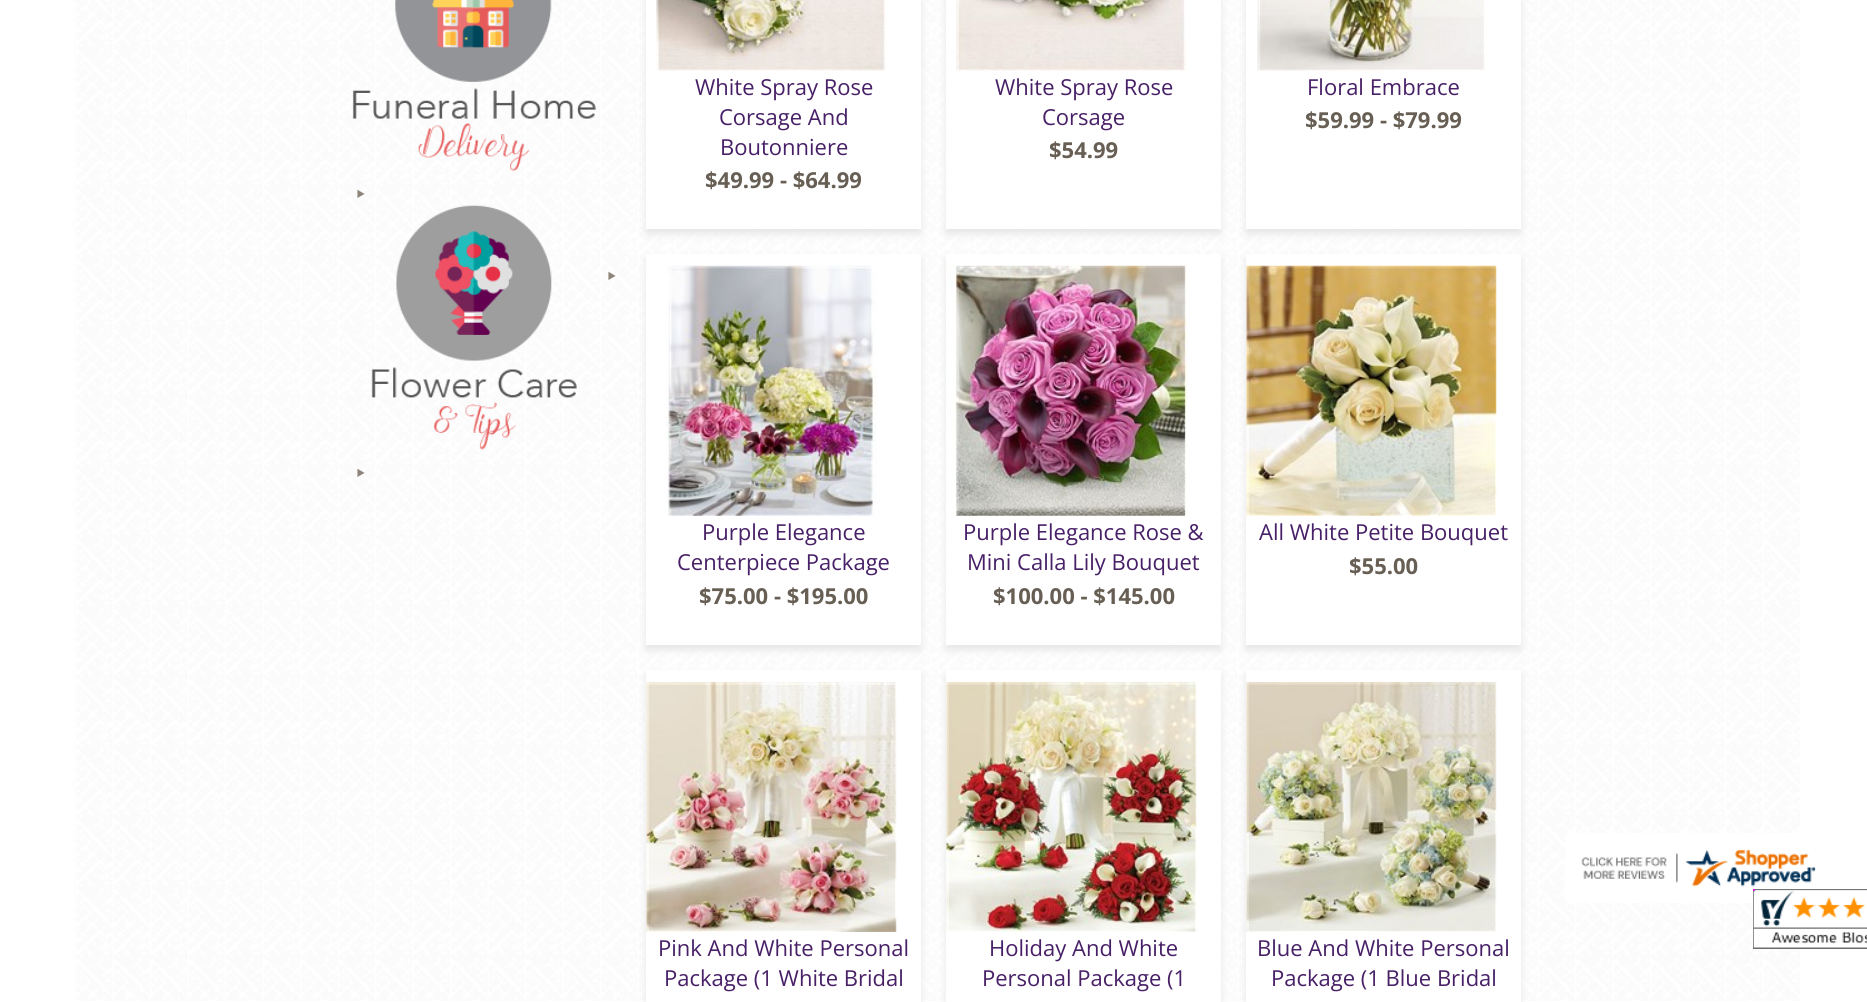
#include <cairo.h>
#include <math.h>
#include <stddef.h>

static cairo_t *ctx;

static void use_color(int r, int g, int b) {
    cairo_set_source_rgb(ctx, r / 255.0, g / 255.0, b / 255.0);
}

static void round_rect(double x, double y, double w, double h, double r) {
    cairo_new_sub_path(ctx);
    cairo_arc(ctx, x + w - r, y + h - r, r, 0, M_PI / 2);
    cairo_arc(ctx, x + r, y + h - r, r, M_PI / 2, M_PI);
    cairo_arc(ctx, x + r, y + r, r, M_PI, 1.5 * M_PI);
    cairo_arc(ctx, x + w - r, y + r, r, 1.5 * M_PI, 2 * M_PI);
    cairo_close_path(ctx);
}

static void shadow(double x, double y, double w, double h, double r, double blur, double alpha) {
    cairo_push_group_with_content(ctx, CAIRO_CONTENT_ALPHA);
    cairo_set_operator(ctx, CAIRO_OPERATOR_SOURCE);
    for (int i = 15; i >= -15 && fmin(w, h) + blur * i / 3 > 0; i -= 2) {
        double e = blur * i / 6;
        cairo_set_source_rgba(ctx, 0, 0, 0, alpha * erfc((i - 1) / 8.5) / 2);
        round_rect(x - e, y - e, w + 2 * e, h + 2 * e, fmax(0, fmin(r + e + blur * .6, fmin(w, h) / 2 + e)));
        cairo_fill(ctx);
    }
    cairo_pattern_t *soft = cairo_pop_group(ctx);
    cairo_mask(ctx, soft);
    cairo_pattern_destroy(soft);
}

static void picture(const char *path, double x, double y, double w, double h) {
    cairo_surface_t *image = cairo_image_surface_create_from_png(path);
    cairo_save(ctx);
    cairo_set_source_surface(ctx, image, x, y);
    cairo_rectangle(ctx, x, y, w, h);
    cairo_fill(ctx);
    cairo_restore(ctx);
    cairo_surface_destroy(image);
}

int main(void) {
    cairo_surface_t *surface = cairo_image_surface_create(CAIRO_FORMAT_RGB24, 1867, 1002);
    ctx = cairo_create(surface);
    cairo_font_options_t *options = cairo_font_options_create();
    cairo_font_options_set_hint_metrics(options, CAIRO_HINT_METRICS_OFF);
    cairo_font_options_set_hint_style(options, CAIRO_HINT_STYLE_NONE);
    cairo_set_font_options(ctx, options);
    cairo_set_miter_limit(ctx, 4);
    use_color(255, 255, 255);
    cairo_paint(ctx);
    picture("img1.png", 74, 0, 1726, 1001);
    picture("img2.png", 352, 0, 244, 171);
    cairo_select_font_face(ctx, "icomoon", CAIRO_FONT_SLANT_NORMAL, CAIRO_FONT_WEIGHT_NORMAL);
    cairo_set_font_size(ctx, 18);
    use_color(142, 132, 122);
    cairo_move_to(ctx, 352, 202);
    cairo_show_text(ctx, "@");
    picture("img3.png", 371, 205, 206, 245);
    cairo_move_to(ctx, 603, 284);
    cairo_show_text(ctx, "@");
    cairo_move_to(ctx, 352, 481);
    cairo_show_text(ctx, "@");
    use_color(230, 230, 230);
    shadow(646, -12, 275, 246, 0, 4, 1);
    use_color(255, 255, 255);
    cairo_rectangle(ctx, 646, 0, 275, 229);
    cairo_fill(ctx);
    picture("img4.png", 656, 0, 230, 71);
    cairo_select_font_face(ctx, "Open Sans", CAIRO_FONT_SLANT_NORMAL, CAIRO_FONT_WEIGHT_NORMAL);
    cairo_set_font_size(ctx, 22);
    use_color(72, 32, 103);
    cairo_move_to(ctx, 695, 95);
    cairo_show_text(ctx, "White Spray Rose");
    cairo_move_to(ctx, 719, 125);
    cairo_show_text(ctx, "Corsage And");
    cairo_move_to(ctx, 720, 155);
    cairo_show_text(ctx, "Boutonniere");
    cairo_select_font_face(ctx, "Open Sans", CAIRO_FONT_SLANT_NORMAL, CAIRO_FONT_WEIGHT_BOLD);
    use_color(103, 94, 84);
    cairo_move_to(ctx, 705, 188);
    cairo_show_text(ctx, "$49.99 - $64.99");
    use_color(230, 230, 230);
    shadow(946, -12, 275, 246, 0, 4, 1);
    use_color(255, 255, 255);
    cairo_rectangle(ctx, 946, 0, 275, 229);
    cairo_fill(ctx);
    picture("img5.png", 956, 0, 230, 71);
    cairo_select_font_face(ctx, "Open Sans", CAIRO_FONT_SLANT_NORMAL, CAIRO_FONT_WEIGHT_NORMAL);
    use_color(72, 32, 103);
    cairo_move_to(ctx, 995, 95);
    cairo_show_text(ctx, "White Spray Rose");
    cairo_move_to(ctx, 1042, 125);
    cairo_show_text(ctx, "Corsage");
    cairo_select_font_face(ctx, "Open Sans", CAIRO_FONT_SLANT_NORMAL, CAIRO_FONT_WEIGHT_BOLD);
    use_color(103, 94, 84);
    cairo_move_to(ctx, 1049, 158);
    cairo_show_text(ctx, "$54.99");
    use_color(230, 230, 230);
    shadow(1246, -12, 275, 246, 0, 4, 1);
    use_color(255, 255, 255);
    cairo_rectangle(ctx, 1246, 0, 275, 229);
    cairo_fill(ctx);
    picture("img6.png", 1257, 0, 229, 71);
    cairo_select_font_face(ctx, "Open Sans", CAIRO_FONT_SLANT_NORMAL, CAIRO_FONT_WEIGHT_NORMAL);
    use_color(72, 32, 103);
    cairo_move_to(ctx, 1307, 95);
    cairo_show_text(ctx, "Floral Embrace");
    cairo_select_font_face(ctx, "Open Sans", CAIRO_FONT_SLANT_NORMAL, CAIRO_FONT_WEIGHT_BOLD);
    use_color(103, 94, 84);
    cairo_move_to(ctx, 1305, 128);
    cairo_show_text(ctx, "$59.99 - $79.99");
    use_color(230, 230, 230);
    shadow(646, 259, 275, 391, 0, 4, 1);
    use_color(255, 255, 255);
    cairo_rectangle(ctx, 646, 254, 275, 391);
    cairo_fill(ctx);
    picture("img7.png", 666, 265, 211, 251);
    cairo_select_font_face(ctx, "Open Sans", CAIRO_FONT_SLANT_NORMAL, CAIRO_FONT_WEIGHT_NORMAL);
    use_color(72, 32, 103);
    cairo_move_to(ctx, 702, 540);
    cairo_show_text(ctx, "Purple Elegance");
    cairo_move_to(ctx, 677, 570);
    cairo_show_text(ctx, "Centerpiece Package");
    cairo_select_font_face(ctx, "Open Sans", CAIRO_FONT_SLANT_NORMAL, CAIRO_FONT_WEIGHT_BOLD);
    use_color(103, 94, 84);
    cairo_move_to(ctx, 699, 604);
    cairo_show_text(ctx, "$75.00 - $195.00");
    use_color(230, 230, 230);
    shadow(946, 259, 275, 391, 0, 4, 1);
    use_color(255, 255, 255);
    cairo_rectangle(ctx, 946, 254, 275, 391);
    cairo_fill(ctx);
    picture("img8.png", 947, 265, 241, 251);
    cairo_select_font_face(ctx, "Open Sans", CAIRO_FONT_SLANT_NORMAL, CAIRO_FONT_WEIGHT_NORMAL);
    use_color(72, 32, 103);
    cairo_move_to(ctx, 963, 540);
    cairo_show_text(ctx, "Purple Elegance Rose &");
    cairo_move_to(ctx, 967, 570);
    cairo_show_text(ctx, "Mini Calla Lily Bouquet");
    cairo_select_font_face(ctx, "Open Sans", CAIRO_FONT_SLANT_NORMAL, CAIRO_FONT_WEIGHT_BOLD);
    use_color(103, 94, 84);
    cairo_move_to(ctx, 993, 604);
    cairo_show_text(ctx, "$100.00 - $145.00");
    use_color(230, 230, 230);
    shadow(1246, 259, 275, 391, 0, 4, 1);
    use_color(255, 255, 255);
    cairo_rectangle(ctx, 1246, 254, 275, 391);
    cairo_fill(ctx);
    picture("img9.png", 1246, 265, 251, 251);
    cairo_select_font_face(ctx, "Open Sans", CAIRO_FONT_SLANT_NORMAL, CAIRO_FONT_WEIGHT_NORMAL);
    use_color(72, 32, 103);
    cairo_move_to(ctx, 1259, 540);
    cairo_show_text(ctx, "All White Petite Bouquet");
    cairo_select_font_face(ctx, "Open Sans", CAIRO_FONT_SLANT_NORMAL, CAIRO_FONT_WEIGHT_BOLD);
    use_color(103, 94, 84);
    cairo_move_to(ctx, 1349, 574);
    cairo_show_text(ctx, "$55.00");
    use_color(230, 230, 230);
    shadow(646, 675, 275, 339, 0, 4, 1);
    use_color(255, 255, 255);
    cairo_rectangle(ctx, 646, 670, 275, 332);
    cairo_fill(ctx);
    picture("img10.png", 646, 682, 251, 250);
    cairo_select_font_face(ctx, "Open Sans", CAIRO_FONT_SLANT_NORMAL, CAIRO_FONT_WEIGHT_NORMAL);
    use_color(72, 32, 103);
    cairo_move_to(ctx, 658, 956);
    cairo_show_text(ctx, "Pink And White Personal");
    cairo_move_to(ctx, 664, 986);
    cairo_show_text(ctx, "Package (1 White Bridal");
    use_color(230, 230, 230);
    shadow(946, 675, 275, 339, 0, 4, 1);
    use_color(255, 255, 255);
    cairo_rectangle(ctx, 946, 670, 275, 332);
    cairo_fill(ctx);
    picture("img11.png", 946, 682, 251, 250);
    use_color(72, 32, 103);
    cairo_move_to(ctx, 989, 956);
    cairo_show_text(ctx, "Holiday And White");
    cairo_move_to(ctx, 982, 986);
    cairo_show_text(ctx, "Personal Package (1");
    use_color(230, 230, 230);
    shadow(1246, 675, 275, 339, 0, 4, 1);
    use_color(255, 255, 255);
    cairo_rectangle(ctx, 1246, 670, 275, 332);
    cairo_fill(ctx);
    picture("img12.png", 1246, 682, 251, 250);
    use_color(72, 32, 103);
    cairo_move_to(ctx, 1257, 956);
    cairo_show_text(ctx, "Blue And White Personal");
    cairo_move_to(ctx, 1271, 986);
    cairo_show_text(ctx, "Package (1 Blue Bridal");
    use_color(255, 255, 255);
    round_rect(1565, 833, 265, 70, 6);
    cairo_fill(ctx);
    picture("img13.png", 1581, 849, 235, 38);
    picture("img14.png", 1753, 889, 114, 60);
    cairo_surface_write_to_png(surface, "result.png");
    cairo_font_options_destroy(options);
    cairo_destroy(ctx);
    cairo_surface_destroy(surface);
    return 0;
}
